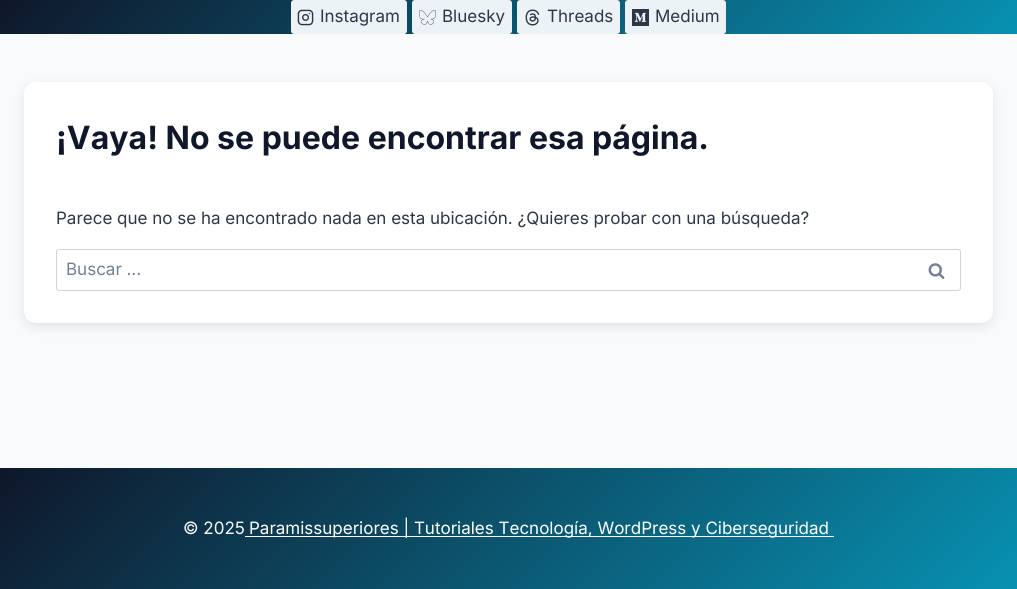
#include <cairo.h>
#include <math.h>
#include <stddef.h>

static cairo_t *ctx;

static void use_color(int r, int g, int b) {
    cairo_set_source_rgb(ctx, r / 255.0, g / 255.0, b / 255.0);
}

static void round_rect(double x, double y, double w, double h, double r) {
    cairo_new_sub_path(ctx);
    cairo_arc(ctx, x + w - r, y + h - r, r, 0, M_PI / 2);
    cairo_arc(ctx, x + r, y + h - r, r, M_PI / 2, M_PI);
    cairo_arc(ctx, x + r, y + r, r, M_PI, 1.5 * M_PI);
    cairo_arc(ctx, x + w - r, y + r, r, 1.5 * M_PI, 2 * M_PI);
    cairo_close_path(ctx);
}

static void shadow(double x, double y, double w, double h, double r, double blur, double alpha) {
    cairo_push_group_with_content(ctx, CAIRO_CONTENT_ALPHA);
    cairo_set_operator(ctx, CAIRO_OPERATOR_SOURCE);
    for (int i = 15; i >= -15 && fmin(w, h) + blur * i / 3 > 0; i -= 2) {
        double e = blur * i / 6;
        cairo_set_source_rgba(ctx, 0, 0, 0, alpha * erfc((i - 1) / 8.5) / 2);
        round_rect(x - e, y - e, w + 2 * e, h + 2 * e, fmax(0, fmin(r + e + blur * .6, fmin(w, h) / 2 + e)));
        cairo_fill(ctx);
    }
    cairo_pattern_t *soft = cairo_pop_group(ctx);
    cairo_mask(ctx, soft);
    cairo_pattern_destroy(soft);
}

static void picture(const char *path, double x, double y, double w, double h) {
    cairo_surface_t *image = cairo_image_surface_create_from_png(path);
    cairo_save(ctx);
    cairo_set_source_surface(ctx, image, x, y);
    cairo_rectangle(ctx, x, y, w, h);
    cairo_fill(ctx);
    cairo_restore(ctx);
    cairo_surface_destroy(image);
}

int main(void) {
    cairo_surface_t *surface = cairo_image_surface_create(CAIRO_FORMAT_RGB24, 1017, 589);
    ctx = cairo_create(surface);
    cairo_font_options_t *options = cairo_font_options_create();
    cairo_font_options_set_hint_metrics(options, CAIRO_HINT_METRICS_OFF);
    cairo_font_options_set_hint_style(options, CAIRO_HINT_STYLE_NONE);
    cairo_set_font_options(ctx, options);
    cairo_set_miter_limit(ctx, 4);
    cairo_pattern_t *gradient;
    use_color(248, 250, 252);
    cairo_paint(ctx);
    gradient = cairo_pattern_create_linear(246, -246, 771, 280);
    cairo_pattern_add_color_stop_rgba(gradient, 0, 0.059, 0.09, 0.165, 1);
    cairo_pattern_add_color_stop_rgba(gradient, 1, 0.031, 0.569, 0.698, 1);
    cairo_set_source(ctx, gradient);
    cairo_pattern_destroy(gradient);
    cairo_rectangle(ctx, 0, 0, 1017, 34);
    cairo_fill(ctx);
    use_color(237, 242, 247);
    round_rect(291, 0, 116, 34, 3);
    cairo_fill(ctx);
    picture("img1.png", 297, 9, 17, 17);
    cairo_select_font_face(ctx, "Inter", CAIRO_FONT_SLANT_NORMAL, CAIRO_FONT_WEIGHT_NORMAL);
    cairo_set_font_size(ctx, 17);
    use_color(45, 55, 72);
    cairo_move_to(ctx, 320, 22);
    cairo_show_text(ctx, "Instagram");
    use_color(237, 242, 247);
    round_rect(412, 0, 100, 34, 3);
    cairo_fill(ctx);
    picture("img2.png", 419, 10, 17, 15);
    use_color(45, 55, 72);
    cairo_move_to(ctx, 442, 22);
    cairo_show_text(ctx, "Bluesky");
    use_color(237, 242, 247);
    round_rect(517, 0, 103, 34, 3);
    cairo_fill(ctx);
    picture("img3.png", 525, 9, 15, 17);
    use_color(45, 55, 72);
    cairo_move_to(ctx, 547, 22);
    cairo_show_text(ctx, "Threads");
    use_color(237, 242, 247);
    round_rect(625, 0, 101, 34, 3);
    cairo_fill(ctx);
    picture("img4.png", 632, 9, 17, 17);
    use_color(45, 55, 72);
    cairo_move_to(ctx, 655, 22);
    cairo_show_text(ctx, "Medium");
    use_color(15, 23, 42);
    shadow(24, 86, 969, 241, 12, 6, 0.1);
    use_color(255, 255, 255);
    round_rect(24, 82, 969, 241, 12);
    cairo_fill(ctx);
    cairo_select_font_face(ctx, "Inter", CAIRO_FONT_SLANT_NORMAL, CAIRO_FONT_WEIGHT_BOLD);
    cairo_set_font_size(ctx, 32);
    use_color(15, 23, 42);
    cairo_move_to(ctx, 56, 149);
    cairo_show_text(ctx, "¡Vaya! No se puede encontrar esa página.");
    cairo_select_font_face(ctx, "Inter", CAIRO_FONT_SLANT_NORMAL, CAIRO_FONT_WEIGHT_NORMAL);
    cairo_set_font_size(ctx, 17);
    use_color(45, 55, 72);
    cairo_move_to(ctx, 56, 224);
    cairo_show_text(ctx, "Parece que no se ha encontrado nada en esta ubicación. ¿Quieres probar con una búsqueda?");
    round_rect(56.5, 249.5, 904, 41, 2.5);
    use_color(203, 213, 224);
    cairo_set_line_width(ctx, 1);
    cairo_stroke(ctx);
    use_color(113, 128, 150);
    cairo_move_to(ctx, 66, 275);
    cairo_show_text(ctx, "Buscar …");
    picture("img5.png", 928, 263, 17, 16);
    gradient = cairo_pattern_create_linear(224, 244, 793, 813);
    cairo_pattern_add_color_stop_rgba(gradient, 0, 0.059, 0.09, 0.165, 1);
    cairo_pattern_add_color_stop_rgba(gradient, 1, 0.031, 0.569, 0.698, 1);
    cairo_set_source(ctx, gradient);
    cairo_pattern_destroy(gradient);
    cairo_rectangle(ctx, 0, 468, 1017, 121);
    cairo_fill(ctx);
    use_color(248, 250, 252);
    cairo_move_to(ctx, 183, 534);
    cairo_show_text(ctx, "© 2025");
    use_color(255, 255, 255);
    cairo_rectangle(ctx, 245, 536, 589, 1);
    cairo_fill(ctx);
    cairo_move_to(ctx, 249, 534);
    cairo_show_text(ctx, "Paramissuperiores | Tutoriales Tecnología, WordPress y Ciberseguridad");
    cairo_surface_write_to_png(surface, "result.png");
    cairo_font_options_destroy(options);
    cairo_destroy(ctx);
    cairo_surface_destroy(surface);
    return 0;
}
